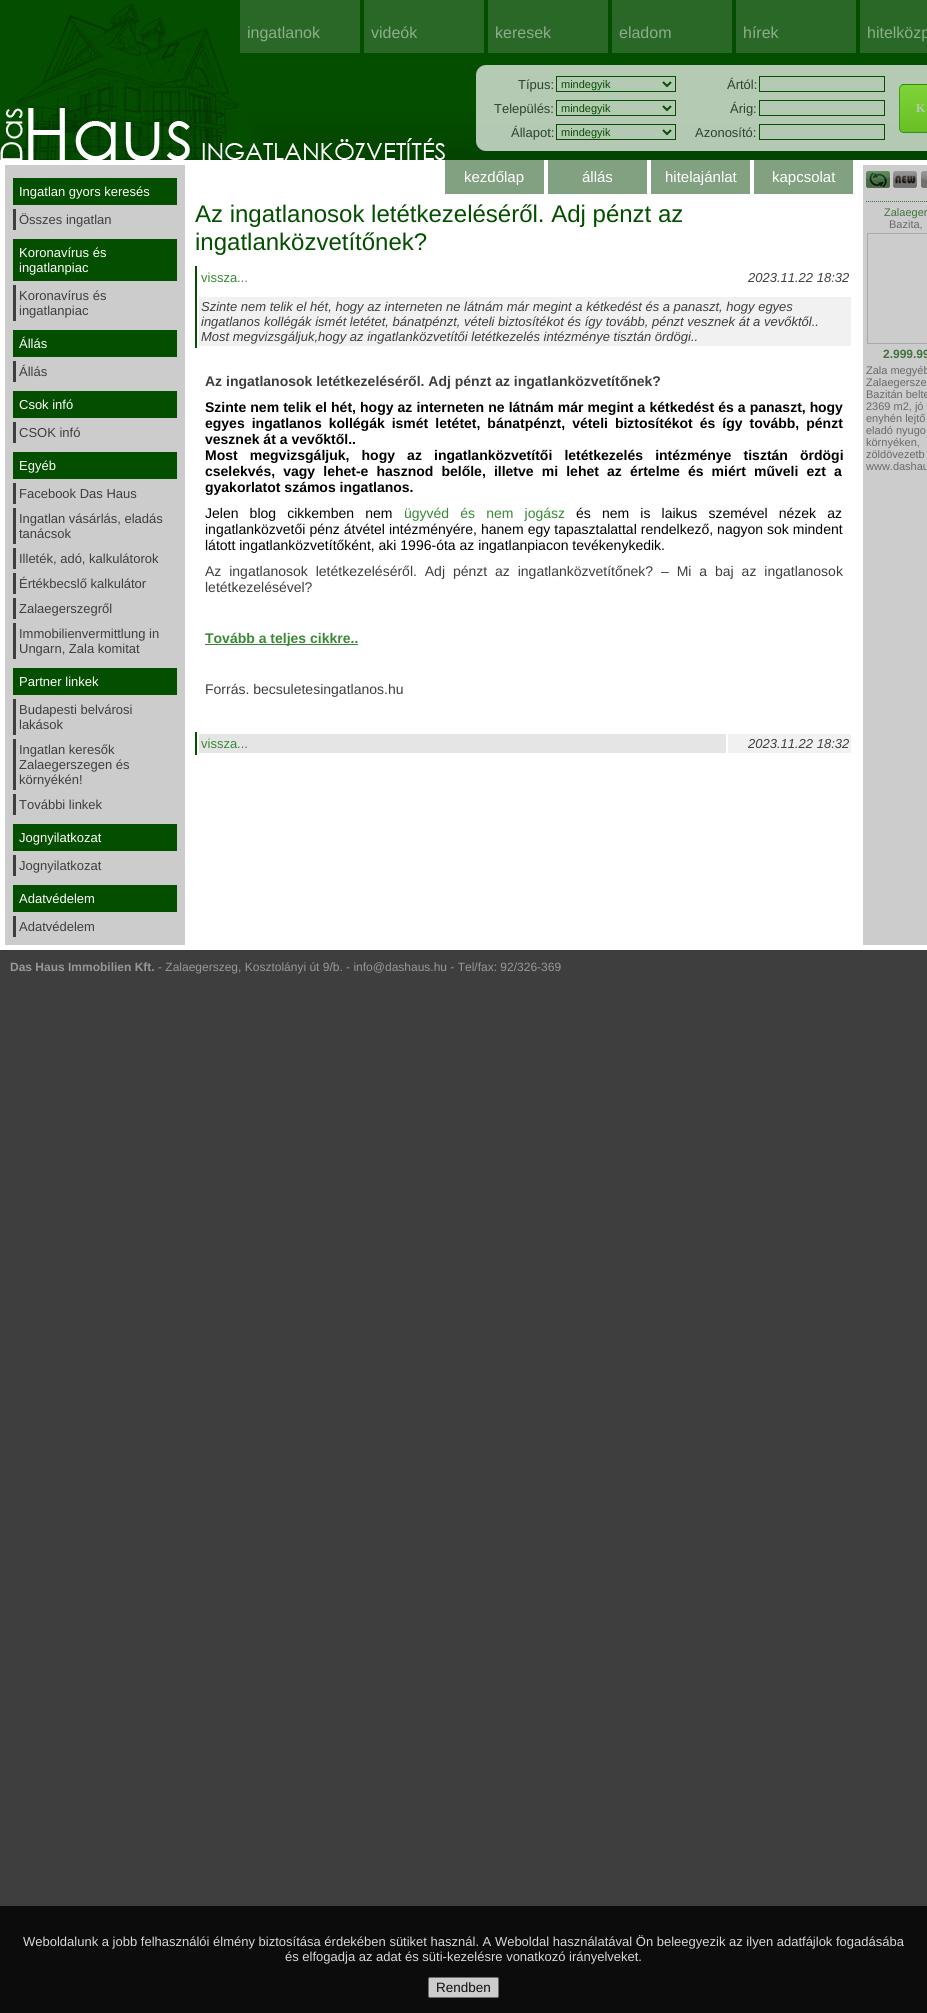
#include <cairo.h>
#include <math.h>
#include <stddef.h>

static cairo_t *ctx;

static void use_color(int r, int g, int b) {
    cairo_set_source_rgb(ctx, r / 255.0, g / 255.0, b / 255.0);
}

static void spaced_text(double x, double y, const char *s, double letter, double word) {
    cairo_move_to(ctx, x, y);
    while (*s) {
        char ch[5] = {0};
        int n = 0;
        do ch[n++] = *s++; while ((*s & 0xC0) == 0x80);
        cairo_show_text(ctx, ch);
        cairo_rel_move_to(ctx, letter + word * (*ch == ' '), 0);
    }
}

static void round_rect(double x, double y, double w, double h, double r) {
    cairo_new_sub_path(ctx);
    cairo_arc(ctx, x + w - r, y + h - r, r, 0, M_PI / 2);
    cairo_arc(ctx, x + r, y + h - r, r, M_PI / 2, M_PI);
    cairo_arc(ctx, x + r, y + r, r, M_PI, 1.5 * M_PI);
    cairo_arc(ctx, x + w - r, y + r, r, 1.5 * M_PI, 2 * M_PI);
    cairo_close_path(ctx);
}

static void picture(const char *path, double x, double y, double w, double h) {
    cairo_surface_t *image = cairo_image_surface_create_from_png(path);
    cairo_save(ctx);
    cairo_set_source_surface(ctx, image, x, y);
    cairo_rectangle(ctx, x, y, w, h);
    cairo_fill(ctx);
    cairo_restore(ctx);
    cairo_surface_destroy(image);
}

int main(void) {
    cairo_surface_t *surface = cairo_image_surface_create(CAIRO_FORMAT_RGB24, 927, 2013);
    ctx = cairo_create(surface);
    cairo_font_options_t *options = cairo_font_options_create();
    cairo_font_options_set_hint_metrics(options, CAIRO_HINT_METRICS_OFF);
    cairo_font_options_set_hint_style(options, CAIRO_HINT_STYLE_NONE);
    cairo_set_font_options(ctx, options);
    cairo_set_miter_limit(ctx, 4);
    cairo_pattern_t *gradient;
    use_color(62, 62, 62);
    cairo_paint(ctx);
    picture("img1.png", 0, 0, 927, 160);
    picture("img2.png", 9, 3, 251, 157);
    use_color(41, 104, 38);
    cairo_rectangle(ctx, 240, 0, 120, 53);
    cairo_fill(ctx);
    cairo_select_font_face(ctx, "Liberation Sans", CAIRO_FONT_SLANT_NORMAL, CAIRO_FONT_WEIGHT_NORMAL);
    cairo_set_font_size(ctx, 16);
    use_color(141, 174, 139);
    cairo_move_to(ctx, 247, 38);
    cairo_show_text(ctx, "ingatlanok");
    use_color(41, 104, 38);
    cairo_rectangle(ctx, 364, 0, 120, 53);
    cairo_fill(ctx);
    use_color(141, 174, 139);
    cairo_move_to(ctx, 371, 38);
    cairo_show_text(ctx, "videók");
    use_color(41, 104, 38);
    cairo_rectangle(ctx, 488, 0, 120, 53);
    cairo_fill(ctx);
    use_color(141, 174, 139);
    cairo_move_to(ctx, 495, 38);
    cairo_show_text(ctx, "keresek");
    use_color(41, 104, 38);
    cairo_rectangle(ctx, 612, 0, 120, 53);
    cairo_fill(ctx);
    use_color(141, 174, 139);
    cairo_move_to(ctx, 619, 38);
    cairo_show_text(ctx, "eladom");
    use_color(41, 104, 38);
    cairo_rectangle(ctx, 736, 0, 120, 53);
    cairo_fill(ctx);
    use_color(141, 174, 139);
    cairo_move_to(ctx, 743, 38);
    cairo_show_text(ctx, "hírek");
    use_color(41, 104, 38);
    cairo_rectangle(ctx, 860, 0, 67, 53);
    cairo_fill(ctx);
    use_color(141, 174, 139);
    cairo_move_to(ctx, 867, 38);
    cairo_show_text(ctx, "hitelközp");
    picture("img3.png", 0, 108, 445, 52);
    use_color(255, 255, 255);
    cairo_rectangle(ctx, 0, 160, 927, 790);
    cairo_fill(ctx);
    cairo_set_source_rgba(ctx, 1, 1, 1, 0.7);
    round_rect(476, 65, 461, 86, 10);
    cairo_fill(ctx);
    cairo_set_font_size(ctx, 13);
    use_color(45, 67, 43);
    cairo_move_to(ctx, 518, 89);
    cairo_show_text(ctx, "Típus:");
    cairo_rectangle(ctx, 556.5, 76.5, 119, 15);
    use_color(4, 78, 0);
    cairo_set_line_width(ctx, 1);
    cairo_stroke(ctx);
    cairo_new_path(ctx);
    cairo_move_to(ctx, 663, 82);
    cairo_line_to(ctx, 667, 86);
    cairo_line_to(ctx, 671, 82);
    cairo_set_line_width(ctx, 2);
    cairo_stroke(ctx);
    cairo_set_font_size(ctx, 11);
    cairo_move_to(ctx, 561, 88);
    cairo_show_text(ctx, "mindegyik");
    cairo_set_font_size(ctx, 13);
    use_color(45, 67, 43);
    cairo_move_to(ctx, 727, 89);
    cairo_show_text(ctx, "Ártól:");
    cairo_rectangle(ctx, 759.5, 76.5, 125, 15);
    use_color(4, 78, 0);
    cairo_set_line_width(ctx, 1);
    cairo_stroke(ctx);
    use_color(137, 209, 83);
    round_rect(899, 84, 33, 49, 5);
    cairo_fill(ctx);
    cairo_save(ctx);
    round_rect(899, 84, 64, 49, 5);
    cairo_clip(ctx);
    gradient = cairo_pattern_create_linear(900, 38, 900, 85);
    cairo_pattern_add_color_stop_rgba(gradient, 0.05, 0.333, 0.675, 0.114, 1);
    cairo_pattern_add_color_stop_rgba(gradient, 1, 0.259, 0.596, 0.047, 1);
    cairo_set_source(ctx, gradient);
    cairo_pattern_destroy(gradient);
    cairo_rectangle(ctx, 899, 84, 28, 1);
    cairo_fill(ctx);
    gradient = cairo_pattern_create_linear(900, 85, 900, 132);
    cairo_pattern_add_color_stop_rgba(gradient, 0.05, 0.467, 0.831, 0.165, 0.7);
    cairo_pattern_add_color_stop_rgba(gradient, 1, 0.361, 0.722, 0.067, 0.7);
    cairo_set_source(ctx, gradient);
    cairo_pattern_destroy(gradient);
    cairo_rectangle(ctx, 899, 85, 28, 47);
    cairo_fill(ctx);
    gradient = cairo_pattern_create_linear(900, 132, 900, 179);
    cairo_pattern_add_color_stop_rgba(gradient, 0.05, 0.333, 0.671, 0.118, 1);
    cairo_pattern_add_color_stop_rgba(gradient, 1, 0.259, 0.592, 0.047, 1);
    cairo_set_source(ctx, gradient);
    cairo_pattern_destroy(gradient);
    cairo_rectangle(ctx, 899, 132, 28, 1);
    cairo_fill(ctx);
    cairo_restore(ctx);
    round_rect(899.5, 84.5, 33, 48, 4.5);
    cairo_set_source_rgba(ctx, 0.149, 0.541, 0.086, 0.7);
    cairo_stroke(ctx);
    cairo_select_font_face(ctx, "Liberation Serif", CAIRO_FONT_SLANT_NORMAL, CAIRO_FONT_WEIGHT_BOLD);
    cairo_set_font_size(ctx, 12);
    use_color(180, 202, 179);
    cairo_move_to(ctx, 916, 112);
    cairo_show_text(ctx, "K");
    cairo_select_font_face(ctx, "Liberation Sans", CAIRO_FONT_SLANT_NORMAL, CAIRO_FONT_WEIGHT_NORMAL);
    cairo_set_font_size(ctx, 13);
    use_color(45, 67, 43);
    cairo_move_to(ctx, 494, 113);
    cairo_show_text(ctx, "Település:");
    cairo_rectangle(ctx, 556.5, 100.5, 119, 15);
    use_color(4, 78, 0);
    cairo_stroke(ctx);
    cairo_new_path(ctx);
    cairo_move_to(ctx, 663, 106);
    cairo_line_to(ctx, 667, 110);
    cairo_line_to(ctx, 671, 106);
    cairo_set_line_width(ctx, 2);
    cairo_stroke(ctx);
    cairo_set_font_size(ctx, 11);
    cairo_move_to(ctx, 561, 112);
    cairo_show_text(ctx, "mindegyik");
    cairo_set_font_size(ctx, 13);
    use_color(45, 67, 43);
    cairo_move_to(ctx, 730, 113);
    cairo_show_text(ctx, "Árig:");
    cairo_rectangle(ctx, 759.5, 100.5, 125, 15);
    use_color(4, 78, 0);
    cairo_set_line_width(ctx, 1);
    cairo_stroke(ctx);
    use_color(45, 67, 43);
    cairo_move_to(ctx, 511, 137);
    cairo_show_text(ctx, "Állapot:");
    cairo_rectangle(ctx, 556.5, 124.5, 119, 15);
    use_color(4, 77, 0);
    cairo_stroke(ctx);
    cairo_new_path(ctx);
    cairo_move_to(ctx, 663, 130);
    cairo_line_to(ctx, 667, 134);
    cairo_line_to(ctx, 671, 130);
    cairo_set_line_width(ctx, 2);
    cairo_stroke(ctx);
    cairo_set_font_size(ctx, 11);
    use_color(4, 78, 0);
    cairo_move_to(ctx, 561, 136);
    cairo_show_text(ctx, "mindegyik");
    cairo_set_font_size(ctx, 13);
    use_color(45, 67, 43);
    cairo_move_to(ctx, 695, 137);
    cairo_show_text(ctx, "Azonosító:");
    cairo_rectangle(ctx, 759.5, 124.5, 125, 15);
    use_color(4, 77, 0);
    cairo_set_line_width(ctx, 1);
    cairo_stroke(ctx);
    picture("img4.png", 5, 165, 922, 780);
    use_color(130, 161, 128);
    cairo_rectangle(ctx, 445, 160, 99, 34);
    cairo_fill(ctx);
    cairo_set_font_size(ctx, 15);
    use_color(255, 255, 255);
    cairo_move_to(ctx, 464, 182);
    cairo_show_text(ctx, "kezdőlap");
    use_color(130, 161, 128);
    cairo_rectangle(ctx, 548, 160, 99, 34);
    cairo_fill(ctx);
    use_color(255, 255, 255);
    cairo_move_to(ctx, 582, 182);
    cairo_show_text(ctx, "állás");
    use_color(130, 161, 128);
    cairo_rectangle(ctx, 651, 160, 99, 34);
    cairo_fill(ctx);
    use_color(255, 255, 255);
    cairo_move_to(ctx, 665, 182);
    cairo_show_text(ctx, "hitelajánlat");
    use_color(130, 161, 128);
    cairo_rectangle(ctx, 754, 160, 99, 34);
    cairo_fill(ctx);
    use_color(255, 255, 255);
    cairo_move_to(ctx, 772, 182);
    cairo_show_text(ctx, "kapcsolat");
    use_color(4, 78, 0);
    cairo_rectangle(ctx, 13, 178, 164, 27);
    cairo_fill(ctx);
    cairo_set_font_size(ctx, 13);
    use_color(255, 255, 255);
    cairo_move_to(ctx, 19, 196);
    cairo_show_text(ctx, "Ingatlan gyors keresés");
    use_color(62, 62, 62);
    cairo_rectangle(ctx, 13, 209, 3, 21);
    cairo_fill(ctx);
    cairo_move_to(ctx, 19, 224);
    cairo_show_text(ctx, "Összes ingatlan");
    use_color(4, 78, 0);
    cairo_rectangle(ctx, 13, 239, 164, 42);
    cairo_fill(ctx);
    use_color(255, 255, 255);
    cairo_move_to(ctx, 19, 257);
    cairo_show_text(ctx, "Koronavírus és");
    cairo_move_to(ctx, 19, 272);
    cairo_show_text(ctx, "ingatlanpiac");
    use_color(62, 62, 62);
    cairo_rectangle(ctx, 13, 285, 3, 36);
    cairo_fill(ctx);
    cairo_move_to(ctx, 19, 300);
    cairo_show_text(ctx, "Koronavírus és");
    cairo_move_to(ctx, 19, 315);
    cairo_show_text(ctx, "ingatlanpiac");
    use_color(4, 78, 0);
    cairo_rectangle(ctx, 13, 330, 164, 27);
    cairo_fill(ctx);
    use_color(255, 255, 255);
    cairo_move_to(ctx, 19, 348);
    cairo_show_text(ctx, "Állás");
    use_color(62, 62, 62);
    cairo_rectangle(ctx, 13, 361, 3, 21);
    cairo_fill(ctx);
    cairo_move_to(ctx, 19, 376);
    cairo_show_text(ctx, "Állás");
    use_color(4, 78, 0);
    cairo_rectangle(ctx, 13, 391, 164, 27);
    cairo_fill(ctx);
    use_color(255, 255, 255);
    cairo_move_to(ctx, 19, 409);
    cairo_show_text(ctx, "Csok infó");
    use_color(62, 62, 62);
    cairo_rectangle(ctx, 13, 422, 3, 21);
    cairo_fill(ctx);
    cairo_move_to(ctx, 19, 437);
    cairo_show_text(ctx, "CSOK infó");
    use_color(4, 78, 0);
    cairo_rectangle(ctx, 13, 452, 164, 27);
    cairo_fill(ctx);
    use_color(255, 255, 255);
    cairo_move_to(ctx, 19, 470);
    cairo_show_text(ctx, "Egyéb");
    use_color(62, 62, 62);
    cairo_rectangle(ctx, 13, 483, 3, 21);
    cairo_fill(ctx);
    cairo_move_to(ctx, 19, 498);
    cairo_show_text(ctx, "Facebook Das Haus");
    cairo_rectangle(ctx, 13, 508, 3, 36);
    cairo_fill(ctx);
    cairo_move_to(ctx, 19, 523);
    cairo_show_text(ctx, "Ingatlan vásárlás, eladás");
    cairo_move_to(ctx, 19, 538);
    cairo_show_text(ctx, "tanácsok");
    cairo_rectangle(ctx, 13, 548, 3, 21);
    cairo_fill(ctx);
    cairo_move_to(ctx, 19, 563);
    cairo_show_text(ctx, "Illeték, adó, kalkulátorok");
    cairo_rectangle(ctx, 13, 573, 3, 21);
    cairo_fill(ctx);
    cairo_move_to(ctx, 19, 588);
    cairo_show_text(ctx, "Értékbecslő kalkulátor");
    cairo_rectangle(ctx, 13, 598, 3, 21);
    cairo_fill(ctx);
    cairo_move_to(ctx, 19, 613);
    cairo_show_text(ctx, "Zalaegerszegről");
    cairo_rectangle(ctx, 13, 623, 3, 36);
    cairo_fill(ctx);
    cairo_move_to(ctx, 19, 638);
    cairo_show_text(ctx, "Immobilienvermittlung in");
    cairo_move_to(ctx, 19, 653);
    cairo_show_text(ctx, "Ungarn, Zala komitat");
    use_color(4, 78, 0);
    cairo_rectangle(ctx, 13, 668, 164, 27);
    cairo_fill(ctx);
    use_color(255, 255, 255);
    cairo_move_to(ctx, 19, 686);
    cairo_show_text(ctx, "Partner linkek");
    use_color(62, 62, 62);
    cairo_rectangle(ctx, 13, 699, 3, 36);
    cairo_fill(ctx);
    cairo_move_to(ctx, 19, 714);
    cairo_show_text(ctx, "Budapesti belvárosi");
    cairo_move_to(ctx, 19, 729);
    cairo_show_text(ctx, "lakások");
    cairo_rectangle(ctx, 13, 739, 3, 51);
    cairo_fill(ctx);
    cairo_move_to(ctx, 19, 754);
    cairo_show_text(ctx, "Ingatlan keresők");
    cairo_move_to(ctx, 19, 769);
    cairo_show_text(ctx, "Zalaegerszegen és");
    cairo_move_to(ctx, 19, 784);
    cairo_show_text(ctx, "környékén!");
    cairo_rectangle(ctx, 13, 794, 3, 21);
    cairo_fill(ctx);
    cairo_move_to(ctx, 19, 809);
    cairo_show_text(ctx, "További linkek");
    use_color(4, 78, 0);
    cairo_rectangle(ctx, 13, 824, 164, 27);
    cairo_fill(ctx);
    use_color(255, 255, 255);
    cairo_move_to(ctx, 19, 842);
    cairo_show_text(ctx, "Jognyilatkozat");
    use_color(62, 62, 62);
    cairo_rectangle(ctx, 13, 855, 3, 21);
    cairo_fill(ctx);
    cairo_move_to(ctx, 19, 870);
    cairo_show_text(ctx, "Jognyilatkozat");
    use_color(4, 78, 0);
    cairo_rectangle(ctx, 13, 885, 164, 27);
    cairo_fill(ctx);
    use_color(255, 255, 255);
    cairo_move_to(ctx, 19, 903);
    cairo_show_text(ctx, "Adatvédelem");
    use_color(62, 62, 62);
    cairo_rectangle(ctx, 13, 916, 3, 21);
    cairo_fill(ctx);
    cairo_move_to(ctx, 19, 931);
    cairo_show_text(ctx, "Adatvédelem");
    cairo_set_font_size(ctx, 24);
    use_color(4, 78, 0);
    cairo_move_to(ctx, 195, 222);
    cairo_show_text(ctx, "Az ingatlanosok letétkezeléséről. Adj pénzt az");
    cairo_move_to(ctx, 195, 250);
    cairo_show_text(ctx, "ingatlanközvetítőnek?");
    cairo_rectangle(ctx, 195, 266, 2, 82);
    cairo_fill(ctx);
    cairo_set_font_size(ctx, 13);
    use_color(56, 137, 52);
    cairo_move_to(ctx, 201, 282);
    cairo_show_text(ctx, "vissza...");
    cairo_select_font_face(ctx, "Liberation Sans", CAIRO_FONT_SLANT_ITALIC, CAIRO_FONT_WEIGHT_NORMAL);
    use_color(62, 62, 62);
    cairo_move_to(ctx, 748, 282);
    cairo_show_text(ctx, "2023.11.22 18:32");
    use_color(241, 241, 241);
    cairo_rectangle(ctx, 199, 297, 652, 49);
    cairo_fill(ctx);
    use_color(62, 62, 62);
    cairo_move_to(ctx, 201, 311);
    cairo_show_text(ctx, "Szinte nem telik el hét, hogy az interneten ne látnám már megint a kétkedést és a panaszt, hogy egyes");
    cairo_move_to(ctx, 201, 326);
    cairo_show_text(ctx, "ingatlanos kollégák ismét letétet, bánatpénzt, vételi biztosítékot és így tovább, pénzt vesznek át a vevőktől..");
    cairo_move_to(ctx, 201, 341);
    cairo_show_text(ctx, "Most megvizsgáljuk,hogy az ingatlanközvetítői letétkezelés intézménye tisztán ördögi..");
    cairo_select_font_face(ctx, "Liberation Sans", CAIRO_FONT_SLANT_NORMAL, CAIRO_FONT_WEIGHT_BOLD);
    cairo_set_font_size(ctx, 14);
    cairo_move_to(ctx, 205, 386);
    cairo_show_text(ctx, "Az ingatlanosok letétkezeléséről. Adj pénzt az ingatlanközvetítőnek?");
    use_color(0, 0, 0);
    spaced_text(205, 412, "Szinte nem telik el hét, hogy az interneten ne látnám már megint a kétkedést és a panaszt, h", 0, 0.2);
    cairo_move_to(ctx, 818, 412);
    cairo_show_text(ctx, "ogy");
    spaced_text(205, 428, "egyes ingatlanos kollégák ismét letétet, bánatpénzt, vételi biztosítékot és így tovább, pénzt", 0, 3.1);
    cairo_move_to(ctx, 205, 444);
    cairo_show_text(ctx, "vesznek át a vevőktől..");
    spaced_text(205, 460, "Most megvizsgáljuk, hogy az ingatlanközvetítői letétkezelés intézménye tisztán ördögi", 0, 8.25);
    spaced_text(205, 476, "cselekvés, vagy lehet-e hasznod belőle, illetve mi lehet az értelme és miért műveli ezt a", 0, 4.25);
    cairo_move_to(ctx, 205, 492);
    cairo_show_text(ctx, "gyakorlatot számos ingatlanos.");
    cairo_select_font_face(ctx, "Liberation Sans", CAIRO_FONT_SLANT_NORMAL, CAIRO_FONT_WEIGHT_NORMAL);
    spaced_text(205, 518, "Jelen blog cikkemben nem", 0, 7.25);
    use_color(56, 137, 52);
    spaced_text(404, 518, "ügyvéd és nem jogász", 0, 7.25);
    use_color(0, 0, 0);
    spaced_text(576, 518, "és nem is laikus szemével nézek az", 0, 7.25);
    spaced_text(205, 534, "ingatlanközvetői pénz átvétel intézményére, hanem egy tapasztalattal rendelkező, nagyon sok mindent", 0, 0.1);
    cairo_move_to(ctx, 205, 550);
    cairo_show_text(ctx, "látott ingatlanközvetítőként, aki 1996-óta az ingatlanpiacon tevékenykedik.");
    use_color(62, 62, 62);
    spaced_text(205, 576, "Az ingatlanosok letétkezeléséről. Adj pénzt az ingatlanközvetítőnek? – Mi a baj az ingatlanosok", 0, 4);
    cairo_move_to(ctx, 205, 592);
    cairo_show_text(ctx, "letétkezelésével?");
    use_color(56, 137, 52);
    cairo_rectangle(ctx, 205, 644, 153, 1);
    cairo_fill(ctx);
    cairo_select_font_face(ctx, "Liberation Sans", CAIRO_FONT_SLANT_NORMAL, CAIRO_FONT_WEIGHT_BOLD);
    cairo_move_to(ctx, 205, 643);
    cairo_show_text(ctx, "Tovább a teljes cikkre..");
    cairo_select_font_face(ctx, "Liberation Sans", CAIRO_FONT_SLANT_NORMAL, CAIRO_FONT_WEIGHT_NORMAL);
    use_color(62, 62, 62);
    cairo_move_to(ctx, 205, 694);
    cairo_show_text(ctx, "Forrás. becsuletesingatlanos.hu");
    use_color(4, 78, 0);
    cairo_rectangle(ctx, 195, 732, 2, 23);
    cairo_fill(ctx);
    use_color(229, 229, 229);
    cairo_rectangle(ctx, 199, 734, 527, 19);
    cairo_fill(ctx);
    cairo_set_font_size(ctx, 13);
    use_color(56, 137, 52);
    cairo_move_to(ctx, 201, 748);
    cairo_show_text(ctx, "vissza...");
    use_color(241, 241, 241);
    cairo_rectangle(ctx, 728, 734, 123, 19);
    cairo_fill(ctx);
    cairo_select_font_face(ctx, "Liberation Sans", CAIRO_FONT_SLANT_ITALIC, CAIRO_FONT_WEIGHT_NORMAL);
    use_color(62, 62, 62);
    cairo_move_to(ctx, 748, 748);
    cairo_show_text(ctx, "2023.11.22 18:32");
    picture("img5.png", 866, 171, 24, 17);
    picture("img6.png", 893, 171, 24, 17);
    picture("img7.png", 921, 171, 6, 17);
    cairo_new_path(ctx);
    cairo_move_to(ctx, 866, 201.5);
    cairo_line_to(ctx, 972, 201.5);
    use_color(64, 116, 61);
    cairo_set_dash(ctx, (double[]){1, 1}, 2, 0);
    cairo_stroke(ctx);
    cairo_select_font_face(ctx, "Liberation Sans", CAIRO_FONT_SLANT_NORMAL, CAIRO_FONT_WEIGHT_NORMAL);
    cairo_set_font_size(ctx, 11);
    cairo_move_to(ctx, 884, 216);
    cairo_show_text(ctx, "Zalaeger");
    use_color(105, 105, 105);
    cairo_move_to(ctx, 889, 228);
    cairo_show_text(ctx, "Bazita,");
    cairo_rectangle(ctx, 867.5, 233.5, 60, 110);
    use_color(168, 168, 168);
    cairo_set_dash(ctx, NULL, 0, 0);
    cairo_stroke(ctx);
    cairo_select_font_face(ctx, "Liberation Sans", CAIRO_FONT_SLANT_NORMAL, CAIRO_FONT_WEIGHT_BOLD);
    cairo_set_font_size(ctx, 12);
    use_color(64, 116, 61);
    cairo_move_to(ctx, 883, 358);
    cairo_show_text(ctx, "2.999.99");
    cairo_select_font_face(ctx, "Liberation Sans", CAIRO_FONT_SLANT_NORMAL, CAIRO_FONT_WEIGHT_NORMAL);
    cairo_set_font_size(ctx, 11);
    use_color(105, 105, 105);
    cairo_move_to(ctx, 866, 374);
    cairo_show_text(ctx, "Zala megyéb");
    cairo_move_to(ctx, 866, 386);
    cairo_show_text(ctx, "Zalaegersze");
    cairo_move_to(ctx, 866, 398);
    cairo_show_text(ctx, "Bazitán belte");
    cairo_move_to(ctx, 866, 410);
    cairo_show_text(ctx, "2369 m2, jó");
    cairo_move_to(ctx, 866, 422);
    cairo_show_text(ctx, "enyhén lejtő");
    cairo_move_to(ctx, 866, 434);
    cairo_show_text(ctx, "eladó nyugo");
    cairo_move_to(ctx, 866, 446);
    cairo_show_text(ctx, "környéken,");
    cairo_move_to(ctx, 866, 458);
    cairo_show_text(ctx, "zöldövezetb");
    cairo_move_to(ctx, 866, 470);
    cairo_show_text(ctx, "www.dashau");
    cairo_select_font_face(ctx, "Liberation Sans", CAIRO_FONT_SLANT_NORMAL, CAIRO_FONT_WEIGHT_BOLD);
    cairo_set_font_size(ctx, 12);
    use_color(152, 152, 152);
    cairo_move_to(ctx, 10, 971);
    cairo_show_text(ctx, "Das Haus Immobilien Kft.");
    cairo_select_font_face(ctx, "Liberation Sans", CAIRO_FONT_SLANT_NORMAL, CAIRO_FONT_WEIGHT_NORMAL);
    cairo_move_to(ctx, 158, 971);
    cairo_show_text(ctx, "- Zalaegerszeg, Kosztolányi út 9/b. - info@dashaus.hu - Tel/fax: 92/326-369");
    use_color(12, 12, 12);
    cairo_rectangle(ctx, 0, 1906, 927, 107);
    cairo_fill(ctx);
    cairo_set_font_size(ctx, 13);
    use_color(216, 216, 216);
    cairo_move_to(ctx, 23, 1946);
    cairo_show_text(ctx, "Weboldalunk a jobb felhasználói élmény biztosítása érdekében sütiket használ. A Weboldal használatával Ön beleegyezik az ilyen adatfájlok fogadásába");
    cairo_move_to(ctx, 285, 1961);
    cairo_show_text(ctx, "és elfogadja az adat és süti-kezelésre vonatkozó irányelveket.");
    use_color(204, 204, 204);
    round_rect(428.5, 1977.5, 70, 20, 1.5);
    cairo_fill_preserve(ctx);
    use_color(107, 107, 107);
    cairo_stroke(ctx);
    cairo_set_font_size(ctx, 13.5);
    use_color(12, 12, 12);
    cairo_move_to(ctx, 436, 1992);
    cairo_show_text(ctx, "Rendben");
    cairo_surface_write_to_png(surface, "result.png");
    cairo_font_options_destroy(options);
    cairo_destroy(ctx);
    cairo_surface_destroy(surface);
    return 0;
}
